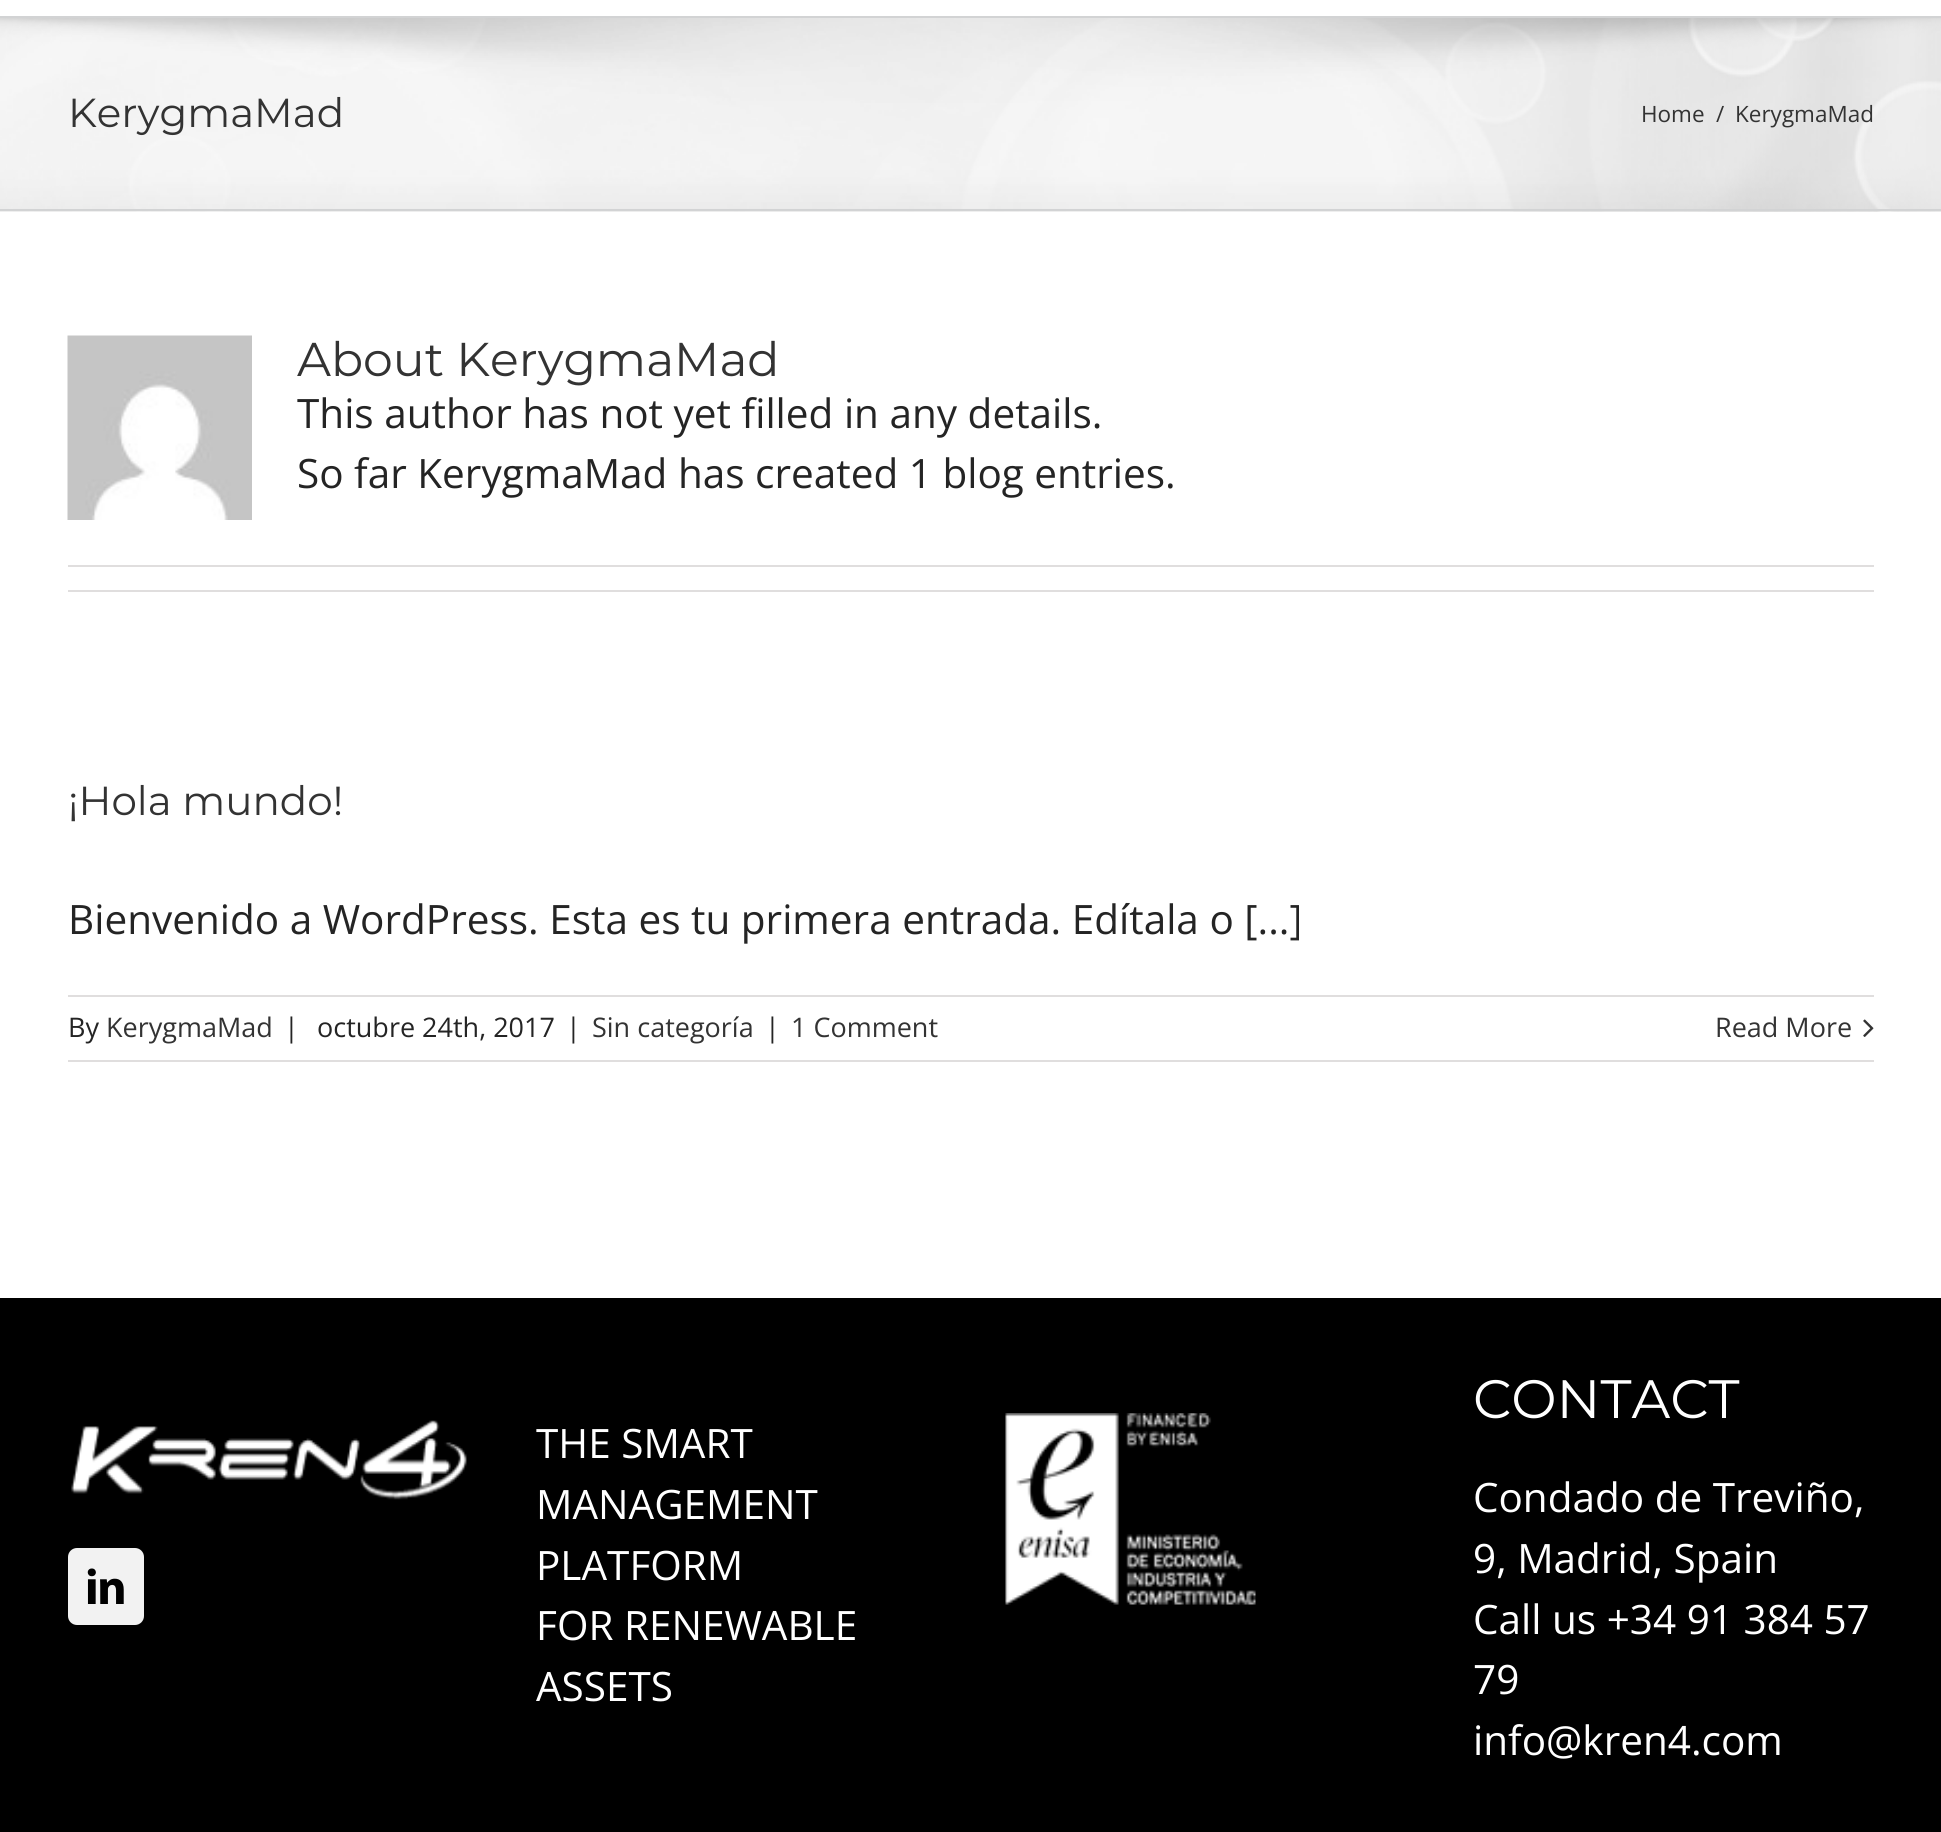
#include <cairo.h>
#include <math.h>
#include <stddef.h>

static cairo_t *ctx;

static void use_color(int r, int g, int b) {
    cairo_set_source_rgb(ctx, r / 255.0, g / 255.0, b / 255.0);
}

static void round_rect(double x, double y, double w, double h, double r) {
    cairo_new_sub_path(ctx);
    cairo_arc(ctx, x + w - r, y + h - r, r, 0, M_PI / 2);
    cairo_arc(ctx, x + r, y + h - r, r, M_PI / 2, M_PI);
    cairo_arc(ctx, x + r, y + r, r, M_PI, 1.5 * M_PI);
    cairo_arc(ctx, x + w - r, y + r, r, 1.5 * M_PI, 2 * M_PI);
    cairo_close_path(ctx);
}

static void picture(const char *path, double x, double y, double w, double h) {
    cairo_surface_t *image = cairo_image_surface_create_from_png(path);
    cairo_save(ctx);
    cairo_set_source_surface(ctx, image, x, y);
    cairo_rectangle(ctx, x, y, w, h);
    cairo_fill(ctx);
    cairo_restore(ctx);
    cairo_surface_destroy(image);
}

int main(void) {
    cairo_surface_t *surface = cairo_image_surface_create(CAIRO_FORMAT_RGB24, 1941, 1832);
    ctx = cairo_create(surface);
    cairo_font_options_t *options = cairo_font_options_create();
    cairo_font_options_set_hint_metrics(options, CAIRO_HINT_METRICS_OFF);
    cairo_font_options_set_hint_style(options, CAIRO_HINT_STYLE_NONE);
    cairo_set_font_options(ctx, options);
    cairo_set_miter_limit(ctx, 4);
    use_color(255, 255, 255);
    cairo_paint(ctx);
    use_color(246, 246, 246);
    cairo_rectangle(ctx, 0, 18, 1941, 194);
    cairo_fill(ctx);
    picture("img1.png", 0, 18, 1941, 194);
    use_color(210, 211, 212);
    cairo_rectangle(ctx, 0, 16, 1941, 2);
    cairo_fill(ctx);
    cairo_rectangle(ctx, 0, 209, 1941, 2);
    cairo_fill(ctx);
    cairo_select_font_face(ctx, "Montserrat Thin", CAIRO_FONT_SLANT_NORMAL, CAIRO_FONT_WEIGHT_NORMAL);
    cairo_set_font_size(ctx, 40.5);
    use_color(51, 51, 51);
    cairo_move_to(ctx, 68, 127);
    cairo_show_text(ctx, "KerygmaMad");
    cairo_select_font_face(ctx, "Open Sans", CAIRO_FONT_SLANT_NORMAL, CAIRO_FONT_WEIGHT_NORMAL);
    cairo_set_font_size(ctx, 22.5);
    cairo_move_to(ctx, 1641, 122);
    cairo_show_text(ctx, "Home");
    cairo_move_to(ctx, 1716, 122);
    cairo_show_text(ctx, "/");
    cairo_move_to(ctx, 1735, 122);
    cairo_show_text(ctx, "KerygmaMad");
    picture("img2.png", 67, 335, 185, 185);
    cairo_select_font_face(ctx, "Montserrat Thin", CAIRO_FONT_SLANT_NORMAL, CAIRO_FONT_WEIGHT_NORMAL);
    cairo_set_font_size(ctx, 47.4);
    cairo_move_to(ctx, 297, 376);
    cairo_show_text(ctx, "About KerygmaMad");
    cairo_select_font_face(ctx, "Open Sans", CAIRO_FONT_SLANT_NORMAL, CAIRO_FONT_WEIGHT_NORMAL);
    cairo_set_font_size(ctx, 40.5);
    use_color(36, 36, 36);
    cairo_move_to(ctx, 297, 428);
    cairo_show_text(ctx, "This author has not yet filled in any details.");
    cairo_move_to(ctx, 297, 488);
    cairo_show_text(ctx, "So far KerygmaMad has created 1 blog entries.");
    use_color(224, 222, 222);
    cairo_rectangle(ctx, 68, 565, 1806, 2);
    cairo_fill(ctx);
    cairo_rectangle(ctx, 68, 590, 1806, 2);
    cairo_fill(ctx);
    cairo_select_font_face(ctx, "Montserrat Thin", CAIRO_FONT_SLANT_NORMAL, CAIRO_FONT_WEIGHT_NORMAL);
    use_color(51, 51, 51);
    cairo_move_to(ctx, 68, 815);
    cairo_show_text(ctx, "¡Hola mundo!");
    cairo_select_font_face(ctx, "Open Sans", CAIRO_FONT_SLANT_NORMAL, CAIRO_FONT_WEIGHT_NORMAL);
    use_color(36, 36, 36);
    cairo_move_to(ctx, 68, 934);
    cairo_show_text(ctx, "Bienvenido a WordPress. Esta es tu primera entrada. Edítala o [...]");
    use_color(224, 222, 222);
    cairo_rectangle(ctx, 68, 995, 1806, 2);
    cairo_fill(ctx);
    cairo_rectangle(ctx, 68, 1060, 1806, 2);
    cairo_fill(ctx);
    cairo_set_font_size(ctx, 27);
    use_color(36, 36, 36);
    cairo_move_to(ctx, 68, 1037);
    cairo_show_text(ctx, "By");
    use_color(51, 51, 51);
    cairo_move_to(ctx, 106, 1037);
    cairo_show_text(ctx, "KerygmaMad");
    use_color(36, 36, 36);
    cairo_move_to(ctx, 284, 1037);
    cairo_show_text(ctx, "|");
    cairo_move_to(ctx, 317, 1037);
    cairo_show_text(ctx, "octubre 24th, 2017");
    cairo_move_to(ctx, 566, 1037);
    cairo_show_text(ctx, "|");
    use_color(51, 51, 51);
    cairo_move_to(ctx, 592, 1037);
    cairo_show_text(ctx, "Sin categoría");
    use_color(36, 36, 36);
    cairo_move_to(ctx, 765, 1037);
    cairo_show_text(ctx, "|");
    use_color(51, 51, 51);
    cairo_move_to(ctx, 791, 1037);
    cairo_show_text(ctx, "1 Comment");
    cairo_move_to(ctx, 1715, 1037);
    cairo_show_text(ctx, "Read More");
    picture("img3.png", 1863, 1019, 11, 18);
    use_color(0, 0, 0);
    cairo_rectangle(ctx, 0, 1298, 1941, 534);
    cairo_fill(ctx);
    picture("img4.png", 71, 1420, 396, 80);
    use_color(242, 242, 242);
    round_rect(69, 1549, 74, 75, 8);
    cairo_fill_preserve(ctx);
    cairo_stroke(ctx);
    picture("img5.png", 87, 1568, 37, 36);
    cairo_set_font_size(ctx, 40.5);
    use_color(255, 255, 255);
    cairo_move_to(ctx, 536, 1458);
    cairo_show_text(ctx, "THE SMART");
    cairo_move_to(ctx, 536, 1519);
    cairo_show_text(ctx, "MANAGEMENT");
    cairo_move_to(ctx, 536, 1580);
    cairo_show_text(ctx, "PLATFORM");
    cairo_move_to(ctx, 536, 1640);
    cairo_show_text(ctx, "FOR RENEWABLE");
    cairo_move_to(ctx, 536, 1701);
    cairo_show_text(ctx, "ASSETS");
    picture("img6.png", 1005, 1413, 251, 192);
    cairo_select_font_face(ctx, "Montserrat Thin", CAIRO_FONT_SLANT_NORMAL, CAIRO_FONT_WEIGHT_NORMAL);
    cairo_set_font_size(ctx, 54);
    cairo_move_to(ctx, 1473, 1418);
    cairo_show_text(ctx, "CONTACT");
    cairo_select_font_face(ctx, "Open Sans", CAIRO_FONT_SLANT_NORMAL, CAIRO_FONT_WEIGHT_NORMAL);
    cairo_set_font_size(ctx, 40.5);
    cairo_move_to(ctx, 1473, 1512);
    cairo_show_text(ctx, "Condado de Treviño,");
    cairo_move_to(ctx, 1473, 1573);
    cairo_show_text(ctx, "9, Madrid, Spain");
    cairo_move_to(ctx, 1473, 1634);
    cairo_show_text(ctx, "Call us +34 91 384 57");
    cairo_move_to(ctx, 1473, 1694);
    cairo_show_text(ctx, "79");
    cairo_move_to(ctx, 1473, 1755);
    cairo_show_text(ctx, "info@kren4.com");
    cairo_surface_write_to_png(surface, "result.png");
    cairo_font_options_destroy(options);
    cairo_destroy(ctx);
    cairo_surface_destroy(surface);
    return 0;
}
